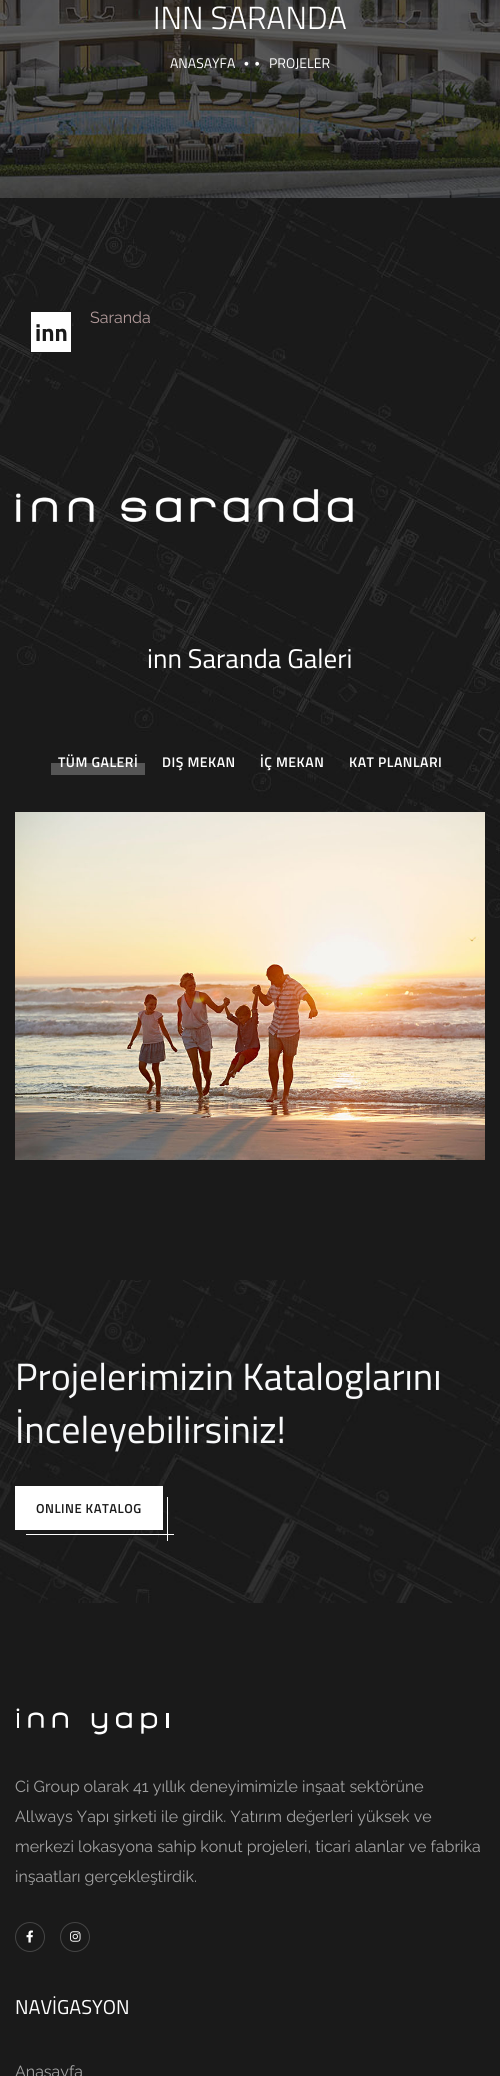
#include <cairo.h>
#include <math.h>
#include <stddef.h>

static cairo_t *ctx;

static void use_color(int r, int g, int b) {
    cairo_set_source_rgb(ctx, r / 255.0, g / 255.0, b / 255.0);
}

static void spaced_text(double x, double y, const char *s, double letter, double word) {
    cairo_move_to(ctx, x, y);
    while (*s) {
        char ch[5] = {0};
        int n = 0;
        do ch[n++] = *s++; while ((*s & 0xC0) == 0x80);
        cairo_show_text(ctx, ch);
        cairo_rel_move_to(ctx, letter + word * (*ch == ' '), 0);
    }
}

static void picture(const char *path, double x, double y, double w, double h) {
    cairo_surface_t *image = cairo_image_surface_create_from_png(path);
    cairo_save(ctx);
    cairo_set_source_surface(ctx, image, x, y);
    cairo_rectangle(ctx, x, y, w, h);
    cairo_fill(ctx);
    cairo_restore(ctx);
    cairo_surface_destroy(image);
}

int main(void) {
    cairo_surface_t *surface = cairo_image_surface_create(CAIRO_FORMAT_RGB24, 500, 2076);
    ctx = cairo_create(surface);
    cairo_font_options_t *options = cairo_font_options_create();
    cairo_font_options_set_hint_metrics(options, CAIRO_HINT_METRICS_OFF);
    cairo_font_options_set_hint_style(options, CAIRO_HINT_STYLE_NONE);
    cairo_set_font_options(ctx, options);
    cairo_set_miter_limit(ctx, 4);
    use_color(26, 26, 26);
    cairo_paint(ctx);
    picture("img1.png", 0, 0, 500, 198);
    cairo_select_font_face(ctx, "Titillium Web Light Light", CAIRO_FONT_SLANT_NORMAL, CAIRO_FONT_WEIGHT_NORMAL);
    cairo_set_font_size(ctx, 32);
    use_color(255, 255, 255);
    cairo_move_to(ctx, 153, 29);
    cairo_show_text(ctx, "INN SARANDA");
    cairo_select_font_face(ctx, "Titillium Web", CAIRO_FONT_SLANT_NORMAL, CAIRO_FONT_WEIGHT_NORMAL);
    cairo_set_font_size(ctx, 14);
    cairo_move_to(ctx, 170, 68);
    cairo_show_text(ctx, "ANASAYFA");
    cairo_select_font_face(ctx, "Josefin Sans Medium", CAIRO_FONT_SLANT_NORMAL, CAIRO_FONT_WEIGHT_NORMAL);
    spaced_text(243, 68, "••", 4, 0);
    cairo_select_font_face(ctx, "Titillium Web", CAIRO_FONT_SLANT_NORMAL, CAIRO_FONT_WEIGHT_NORMAL);
    cairo_move_to(ctx, 269, 68);
    cairo_show_text(ctx, "PROJELER");
    picture("img2.png", 0, 198, 500, 720);
    cairo_select_font_face(ctx, "Raleway", CAIRO_FONT_SLANT_NORMAL, CAIRO_FONT_WEIGHT_NORMAL);
    cairo_set_font_size(ctx, 16);
    use_color(179, 155, 155);
    cairo_move_to(ctx, 90, 323);
    cairo_show_text(ctx, "Saranda");
    use_color(255, 255, 255);
    cairo_rectangle(ctx, 30.5, 311.5, 41, 41);
    cairo_fill_preserve(ctx);
    use_color(26, 26, 26);
    cairo_set_line_width(ctx, 1);
    cairo_stroke(ctx);
    cairo_select_font_face(ctx, "Titillium Web", CAIRO_FONT_SLANT_NORMAL, CAIRO_FONT_WEIGHT_BOLD);
    cairo_set_font_size(ctx, 24);
    cairo_move_to(ctx, 35, 341);
    cairo_show_text(ctx, "inn");
    picture("img3.png", 16, 489, 337, 33);
    cairo_select_font_face(ctx, "Titillium Web", CAIRO_FONT_SLANT_NORMAL, CAIRO_FONT_WEIGHT_NORMAL);
    cairo_set_font_size(ctx, 27);
    use_color(255, 255, 255);
    cairo_move_to(ctx, 147, 668);
    cairo_show_text(ctx, "inn Saranda Galeri");
    cairo_new_path(ctx);
    cairo_move_to(ctx, 217, 705);
    cairo_line_to(ctx, 283, 705);
    use_color(26, 26, 26);
    cairo_set_line_width(ctx, 2);
    cairo_set_dash(ctx, (double[]){2, 2}, 2, 0);
    cairo_stroke(ctx);
    use_color(85, 85, 85);
    cairo_rectangle(ctx, 51, 763, 94, 12);
    cairo_fill(ctx);
    cairo_select_font_face(ctx, "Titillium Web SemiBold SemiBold", CAIRO_FONT_SLANT_NORMAL, CAIRO_FONT_WEIGHT_NORMAL);
    cairo_set_font_size(ctx, 14);
    use_color(255, 255, 255);
    spaced_text(58, 767, "TÜM GALERİ", 0.5, 0);
    spaced_text(162, 767, "DIŞ MEKAN", 0.5, 0);
    spaced_text(260, 767, "İÇ MEKAN", 0.5, 0);
    spaced_text(349, 767, "KAT PLANLARI", 0.5, 0);
    picture("img4.png", 15, 812, 470, 348);
    picture("img5.png", 0, 1280, 500, 323);
    cairo_select_font_face(ctx, "Titillium Web", CAIRO_FONT_SLANT_NORMAL, CAIRO_FONT_WEIGHT_NORMAL);
    cairo_set_font_size(ctx, 38);
    use_color(248, 249, 250);
    cairo_move_to(ctx, 15, 1390);
    cairo_show_text(ctx, "Projelerimizin Kataloglarını");
    cairo_move_to(ctx, 15, 1443);
    cairo_show_text(ctx, "İnceleyebilirsiniz!");
    use_color(255, 255, 255);
    cairo_rectangle(ctx, 15, 1486, 148, 44);
    cairo_fill(ctx);
    cairo_select_font_face(ctx, "Titillium Web SemiBold SemiBold", CAIRO_FONT_SLANT_NORMAL, CAIRO_FONT_WEIGHT_NORMAL);
    cairo_set_font_size(ctx, 13);
    use_color(26, 26, 26);
    spaced_text(36, 1513, "ONLINE KATALOG", 0.5, 0);
    use_color(255, 255, 255);
    cairo_rectangle(ctx, 26, 1534, 148, 1);
    cairo_fill(ctx);
    cairo_rectangle(ctx, 167, 1497, 1, 44);
    cairo_fill(ctx);
    picture("img6.png", 16, 1708, 153, 27);
    cairo_select_font_face(ctx, "Raleway", CAIRO_FONT_SLANT_NORMAL, CAIRO_FONT_WEIGHT_NORMAL);
    cairo_set_font_size(ctx, 16);
    use_color(163, 163, 163);
    cairo_move_to(ctx, 15, 1792);
    cairo_show_text(ctx, "Ci Group olarak 41 yıllık deneyimimizle inşaat sektörüne");
    cairo_move_to(ctx, 15, 1822);
    cairo_show_text(ctx, "Allways Yapı şirketi ile girdik. Yatırım değerleri yüksek ve");
    cairo_move_to(ctx, 15, 1852);
    cairo_show_text(ctx, "merkezi lokasyona sahip konut projeleri, ticari alanlar ve fabrika");
    cairo_move_to(ctx, 15, 1882);
    cairo_show_text(ctx, "inşaatları gerçekleştirdik.");
    cairo_new_path(ctx);
    cairo_arc(ctx, 30, 1937, 14.5, 0, 2 * M_PI);
    use_color(68, 68, 68);
    cairo_set_line_width(ctx, 1);
    cairo_set_dash(ctx, NULL, 0, 0);
    cairo_stroke(ctx);
    picture("img7.png", 26, 1930, 7, 13);
    cairo_arc(ctx, 75, 1937, 14.5, 0, 2 * M_PI);
    cairo_stroke(ctx);
    picture("img8.png", 70, 1931, 11, 11);
    cairo_select_font_face(ctx, "Titillium Web", CAIRO_FONT_SLANT_NORMAL, CAIRO_FONT_WEIGHT_NORMAL);
    cairo_set_font_size(ctx, 20);
    use_color(255, 255, 255);
    cairo_move_to(ctx, 15, 2014);
    cairo_show_text(ctx, "NAVİGASYON");
    cairo_select_font_face(ctx, "Raleway", CAIRO_FONT_SLANT_NORMAL, CAIRO_FONT_WEIGHT_NORMAL);
    cairo_set_font_size(ctx, 16);
    use_color(163, 163, 163);
    cairo_move_to(ctx, 15, 2077);
    cairo_show_text(ctx, "Anasayfa");
    cairo_surface_write_to_png(surface, "result.png");
    cairo_font_options_destroy(options);
    cairo_destroy(ctx);
    cairo_surface_destroy(surface);
    return 0;
}
